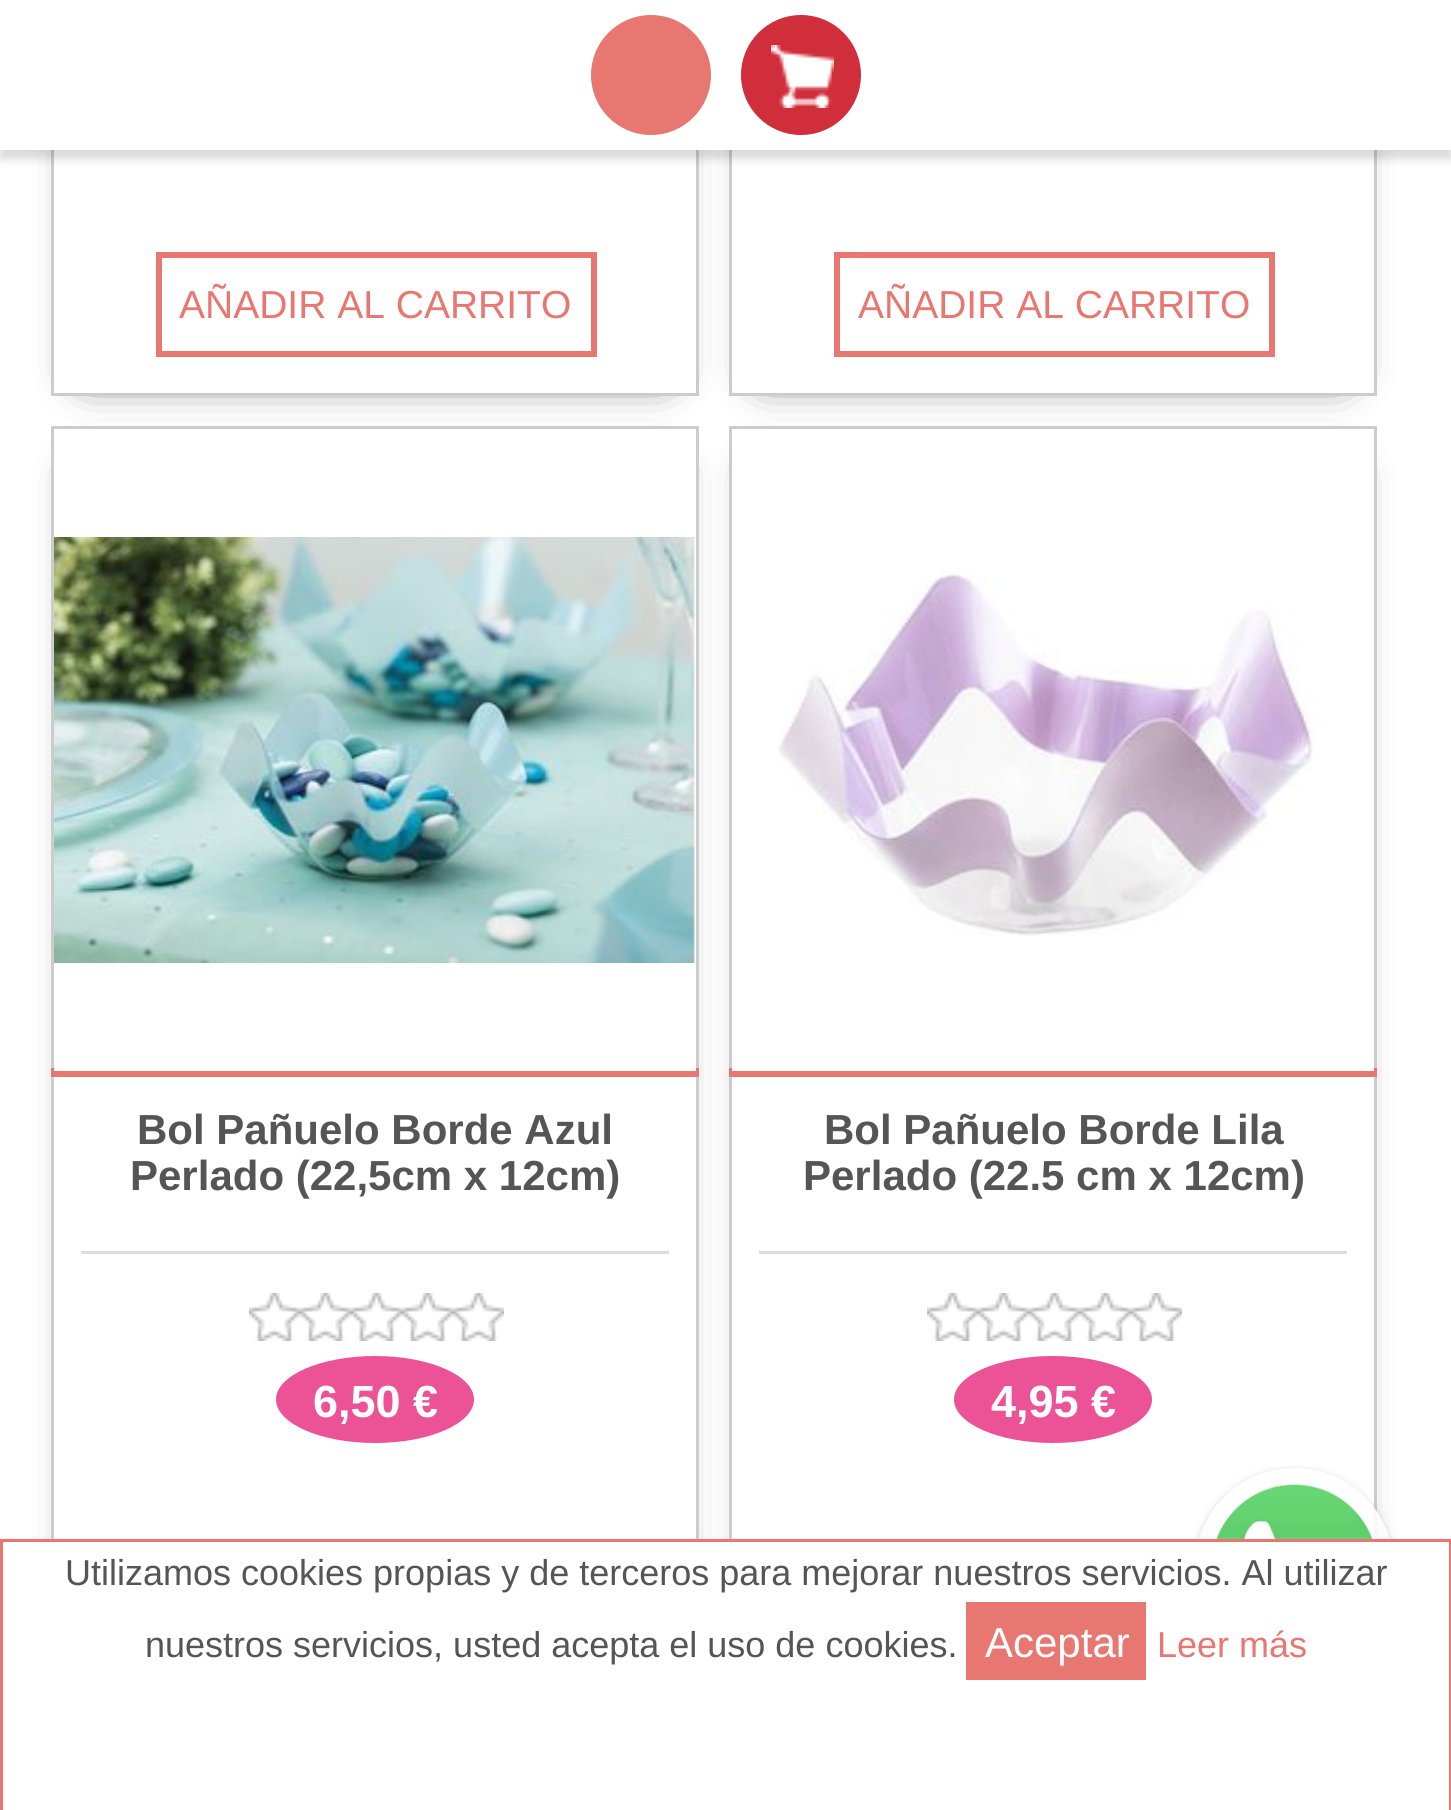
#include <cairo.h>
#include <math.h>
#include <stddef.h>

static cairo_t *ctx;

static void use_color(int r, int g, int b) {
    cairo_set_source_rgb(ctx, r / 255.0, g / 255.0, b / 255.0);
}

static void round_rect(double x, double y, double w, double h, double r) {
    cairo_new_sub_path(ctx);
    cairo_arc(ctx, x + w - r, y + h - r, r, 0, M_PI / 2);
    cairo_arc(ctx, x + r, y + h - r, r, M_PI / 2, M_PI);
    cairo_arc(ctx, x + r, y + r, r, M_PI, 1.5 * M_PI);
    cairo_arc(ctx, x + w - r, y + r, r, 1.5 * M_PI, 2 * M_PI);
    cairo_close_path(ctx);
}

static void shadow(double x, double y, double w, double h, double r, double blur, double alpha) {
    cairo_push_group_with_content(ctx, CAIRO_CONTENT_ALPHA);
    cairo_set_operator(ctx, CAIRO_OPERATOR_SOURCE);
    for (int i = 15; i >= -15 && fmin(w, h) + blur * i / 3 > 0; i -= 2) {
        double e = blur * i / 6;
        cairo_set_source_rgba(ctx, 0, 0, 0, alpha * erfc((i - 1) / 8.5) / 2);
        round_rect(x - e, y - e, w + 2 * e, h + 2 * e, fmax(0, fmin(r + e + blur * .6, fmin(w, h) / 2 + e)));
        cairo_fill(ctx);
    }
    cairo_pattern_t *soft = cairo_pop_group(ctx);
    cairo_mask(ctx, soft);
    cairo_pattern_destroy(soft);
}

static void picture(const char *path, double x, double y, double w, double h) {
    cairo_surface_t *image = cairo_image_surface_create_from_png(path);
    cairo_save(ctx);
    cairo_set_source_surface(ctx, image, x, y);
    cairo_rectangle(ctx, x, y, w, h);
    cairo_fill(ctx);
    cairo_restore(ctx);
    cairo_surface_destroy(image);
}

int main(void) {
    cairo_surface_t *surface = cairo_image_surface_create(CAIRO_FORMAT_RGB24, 1451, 1810);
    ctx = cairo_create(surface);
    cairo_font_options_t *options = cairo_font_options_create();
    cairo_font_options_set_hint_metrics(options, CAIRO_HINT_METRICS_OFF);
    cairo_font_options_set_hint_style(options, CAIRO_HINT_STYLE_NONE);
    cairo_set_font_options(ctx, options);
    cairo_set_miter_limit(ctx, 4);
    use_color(255, 255, 255);
    cairo_paint(ctx);
    cairo_save(ctx);
    cairo_set_fill_rule(ctx, CAIRO_FILL_RULE_EVEN_ODD);
    cairo_new_path(ctx);
    cairo_move_to(ctx, 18, 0);
    cairo_line_to(ctx, 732, 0);
    cairo_line_to(ctx, 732, 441);
    cairo_line_to(ctx, 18, 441);
    cairo_close_path(ctx);
    cairo_move_to(ctx, 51, -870);
    cairo_line_to(ctx, 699, -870);
    cairo_line_to(ctx, 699, 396);
    cairo_line_to(ctx, 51, 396);
    cairo_close_path(ctx);
    cairo_clip(ctx);
    use_color(0, 0, 0);
    shadow(87, -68, 576, 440, 0, 22.5, 1);
    cairo_restore(ctx);
    cairo_rectangle(ctx, 52.5, -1.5, 645, 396);
    use_color(204, 204, 204);
    cairo_set_line_width(ctx, 3);
    cairo_stroke(ctx);
    cairo_save(ctx);
    cairo_set_fill_rule(ctx, CAIRO_FILL_RULE_EVEN_ODD);
    cairo_new_path(ctx);
    cairo_move_to(ctx, 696, 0);
    cairo_line_to(ctx, 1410, 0);
    cairo_line_to(ctx, 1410, 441);
    cairo_line_to(ctx, 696, 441);
    cairo_close_path(ctx);
    cairo_move_to(ctx, 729, -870);
    cairo_line_to(ctx, 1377, -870);
    cairo_line_to(ctx, 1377, 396);
    cairo_line_to(ctx, 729, 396);
    cairo_close_path(ctx);
    cairo_clip(ctx);
    use_color(0, 0, 0);
    shadow(765, -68, 576, 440, 0, 22.5, 1);
    cairo_restore(ctx);
    cairo_rectangle(ctx, 730.5, -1.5, 645, 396);
    cairo_stroke(ctx);
    use_color(0, 0, 0);
    shadow(0, 9, 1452, 150, 0, 4.5, 0.15);
    use_color(255, 255, 255);
    cairo_rectangle(ctx, 0, 0, 1451, 150);
    cairo_fill(ctx);
    use_color(232, 119, 114);
    cairo_arc(ctx, 651, 75, 60, 0, 2 * M_PI);
    cairo_fill(ctx);
    use_color(209, 46, 60);
    cairo_arc(ctx, 801, 75, 60, 0, 2 * M_PI);
    cairo_fill(ctx);
    picture("img1.png", 771, 45, 63, 63);
    cairo_rectangle(ctx, 159, 255, 435, 99);
    use_color(232, 119, 114);
    cairo_set_line_width(ctx, 6);
    cairo_stroke(ctx);
    cairo_select_font_face(ctx, "Liberation Sans", CAIRO_FONT_SLANT_NORMAL, CAIRO_FONT_WEIGHT_NORMAL);
    cairo_set_font_size(ctx, 39);
    cairo_move_to(ctx, 179, 318);
    cairo_show_text(ctx, "AÑADIR AL CARRITO");
    cairo_rectangle(ctx, 837, 255, 435, 99);
    cairo_stroke(ctx);
    cairo_move_to(ctx, 858, 318);
    cairo_show_text(ctx, "AÑADIR AL CARRITO");
    cairo_save(ctx);
    cairo_set_fill_rule(ctx, CAIRO_FILL_RULE_EVEN_ODD);
    cairo_new_path(ctx);
    cairo_move_to(ctx, 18, 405);
    cairo_line_to(ctx, 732, 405);
    cairo_line_to(ctx, 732, 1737);
    cairo_line_to(ctx, 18, 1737);
    cairo_close_path(ctx);
    cairo_move_to(ctx, 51, 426);
    cairo_line_to(ctx, 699, 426);
    cairo_line_to(ctx, 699, 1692);
    cairo_line_to(ctx, 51, 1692);
    cairo_close_path(ctx);
    cairo_clip(ctx);
    use_color(0, 0, 0);
    shadow(87, 474, 576, 1194, 0, 22.5, 1);
    cairo_restore(ctx);
    cairo_rectangle(ctx, 52.5, 427.5, 645, 1263);
    use_color(204, 204, 204);
    cairo_set_line_width(ctx, 3);
    cairo_stroke(ctx);
    use_color(232, 119, 114);
    cairo_rectangle(ctx, 51, 1068, 648, 9);
    cairo_fill(ctx);
    use_color(255, 255, 255);
    cairo_rectangle(ctx, 54, 1068, 642, 3);
    cairo_fill(ctx);
    picture("img2.png", 54, 537, 642, 426);
    use_color(221, 221, 221);
    cairo_rectangle(ctx, 81, 1251, 588, 3);
    cairo_fill(ctx);
    cairo_select_font_face(ctx, "Liberation Sans", CAIRO_FONT_SLANT_NORMAL, CAIRO_FONT_WEIGHT_BOLD);
    cairo_set_font_size(ctx, 42);
    use_color(85, 85, 85);
    cairo_move_to(ctx, 137, 1144);
    cairo_show_text(ctx, "Bol Pañuelo Borde Azul");
    cairo_move_to(ctx, 130, 1190);
    cairo_show_text(ctx, "Perlado (22,5cm x 12cm)");
    picture("img3.png", 249, 1293, 255, 48);
    use_color(236, 82, 150);
    cairo_new_path(ctx);
    cairo_move_to(ctx, 375, 1356);
    cairo_curve_to(ctx, 429.5, 1356, 474, 1375.5, 474, 1399.5);
    cairo_curve_to(ctx, 474, 1423.5, 429.5, 1443, 375, 1443);
    cairo_curve_to(ctx, 320.5, 1443, 276, 1423.5, 276, 1399.5);
    cairo_curve_to(ctx, 276, 1375.5, 320.5, 1356, 375, 1356);
    cairo_close_path(ctx);
    cairo_fill(ctx);
    cairo_set_font_size(ctx, 45);
    use_color(255, 255, 255);
    cairo_move_to(ctx, 313, 1417);
    cairo_show_text(ctx, "6,50 €");
    cairo_save(ctx);
    cairo_set_fill_rule(ctx, CAIRO_FILL_RULE_EVEN_ODD);
    cairo_new_path(ctx);
    cairo_move_to(ctx, 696, 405);
    cairo_line_to(ctx, 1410, 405);
    cairo_line_to(ctx, 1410, 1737);
    cairo_line_to(ctx, 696, 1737);
    cairo_close_path(ctx);
    cairo_move_to(ctx, 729, 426);
    cairo_line_to(ctx, 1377, 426);
    cairo_line_to(ctx, 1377, 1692);
    cairo_line_to(ctx, 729, 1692);
    cairo_close_path(ctx);
    cairo_clip(ctx);
    use_color(0, 0, 0);
    shadow(765, 474, 576, 1194, 0, 22.5, 1);
    cairo_restore(ctx);
    cairo_rectangle(ctx, 730.5, 427.5, 645, 1263);
    use_color(204, 204, 204);
    cairo_stroke(ctx);
    use_color(232, 119, 114);
    cairo_rectangle(ctx, 729, 1068, 648, 9);
    cairo_fill(ctx);
    use_color(255, 255, 255);
    cairo_rectangle(ctx, 732, 1068, 642, 3);
    cairo_fill(ctx);
    picture("img4.png", 778, 571, 541, 365);
    use_color(221, 221, 221);
    cairo_rectangle(ctx, 759, 1251, 588, 3);
    cairo_fill(ctx);
    cairo_set_font_size(ctx, 42);
    use_color(85, 85, 85);
    cairo_move_to(ctx, 824, 1144);
    cairo_show_text(ctx, "Bol Pañuelo Borde Lila");
    cairo_move_to(ctx, 803, 1190);
    cairo_show_text(ctx, "Perlado (22.5 cm x 12cm)");
    picture("img3.png", 927, 1293, 255, 48);
    use_color(236, 82, 150);
    cairo_new_path(ctx);
    cairo_move_to(ctx, 1053, 1356);
    cairo_curve_to(ctx, 1107.5, 1356, 1152, 1375.5, 1152, 1399.5);
    cairo_curve_to(ctx, 1152, 1423.5, 1107.5, 1443, 1053, 1443);
    cairo_curve_to(ctx, 998.5, 1443, 954, 1423.5, 954, 1399.5);
    cairo_curve_to(ctx, 954, 1375.5, 998.5, 1356, 1053, 1356);
    cairo_close_path(ctx);
    cairo_fill(ctx);
    cairo_set_font_size(ctx, 45);
    use_color(255, 255, 255);
    cairo_move_to(ctx, 991, 1417);
    cairo_show_text(ctx, "4,95 €");
    picture("img5.png", 1196, 1466, 197, 73);
    use_color(204, 204, 204);
    shadow(0, 1542, 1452, 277, 0, 3, 1);
    use_color(255, 255, 255);
    cairo_rectangle(ctx, 1.5, 1540.5, 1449, 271);
    cairo_fill_preserve(ctx);
    use_color(232, 119, 114);
    cairo_stroke(ctx);
    cairo_select_font_face(ctx, "Liberation Sans", CAIRO_FONT_SLANT_NORMAL, CAIRO_FONT_WEIGHT_NORMAL);
    cairo_set_font_size(ctx, 36);
    use_color(85, 85, 85);
    cairo_move_to(ctx, 65, 1585);
    cairo_show_text(ctx, "Utilizamos cookies propias y de terceros para mejorar nuestros servicios. Al utilizar");
    cairo_move_to(ctx, 145, 1657);
    cairo_show_text(ctx, "nuestros servicios, usted acepta el uso de cookies.");
    use_color(232, 119, 114);
    cairo_rectangle(ctx, 966, 1602, 180, 78);
    cairo_fill(ctx);
    cairo_set_font_size(ctx, 42);
    use_color(255, 255, 255);
    cairo_move_to(ctx, 985, 1657);
    cairo_show_text(ctx, "Aceptar");
    cairo_set_font_size(ctx, 36);
    use_color(232, 119, 114);
    cairo_move_to(ctx, 1157, 1657);
    cairo_show_text(ctx, "Leer más");
    cairo_surface_write_to_png(surface, "result.png");
    cairo_font_options_destroy(options);
    cairo_destroy(ctx);
    cairo_surface_destroy(surface);
    return 0;
}
